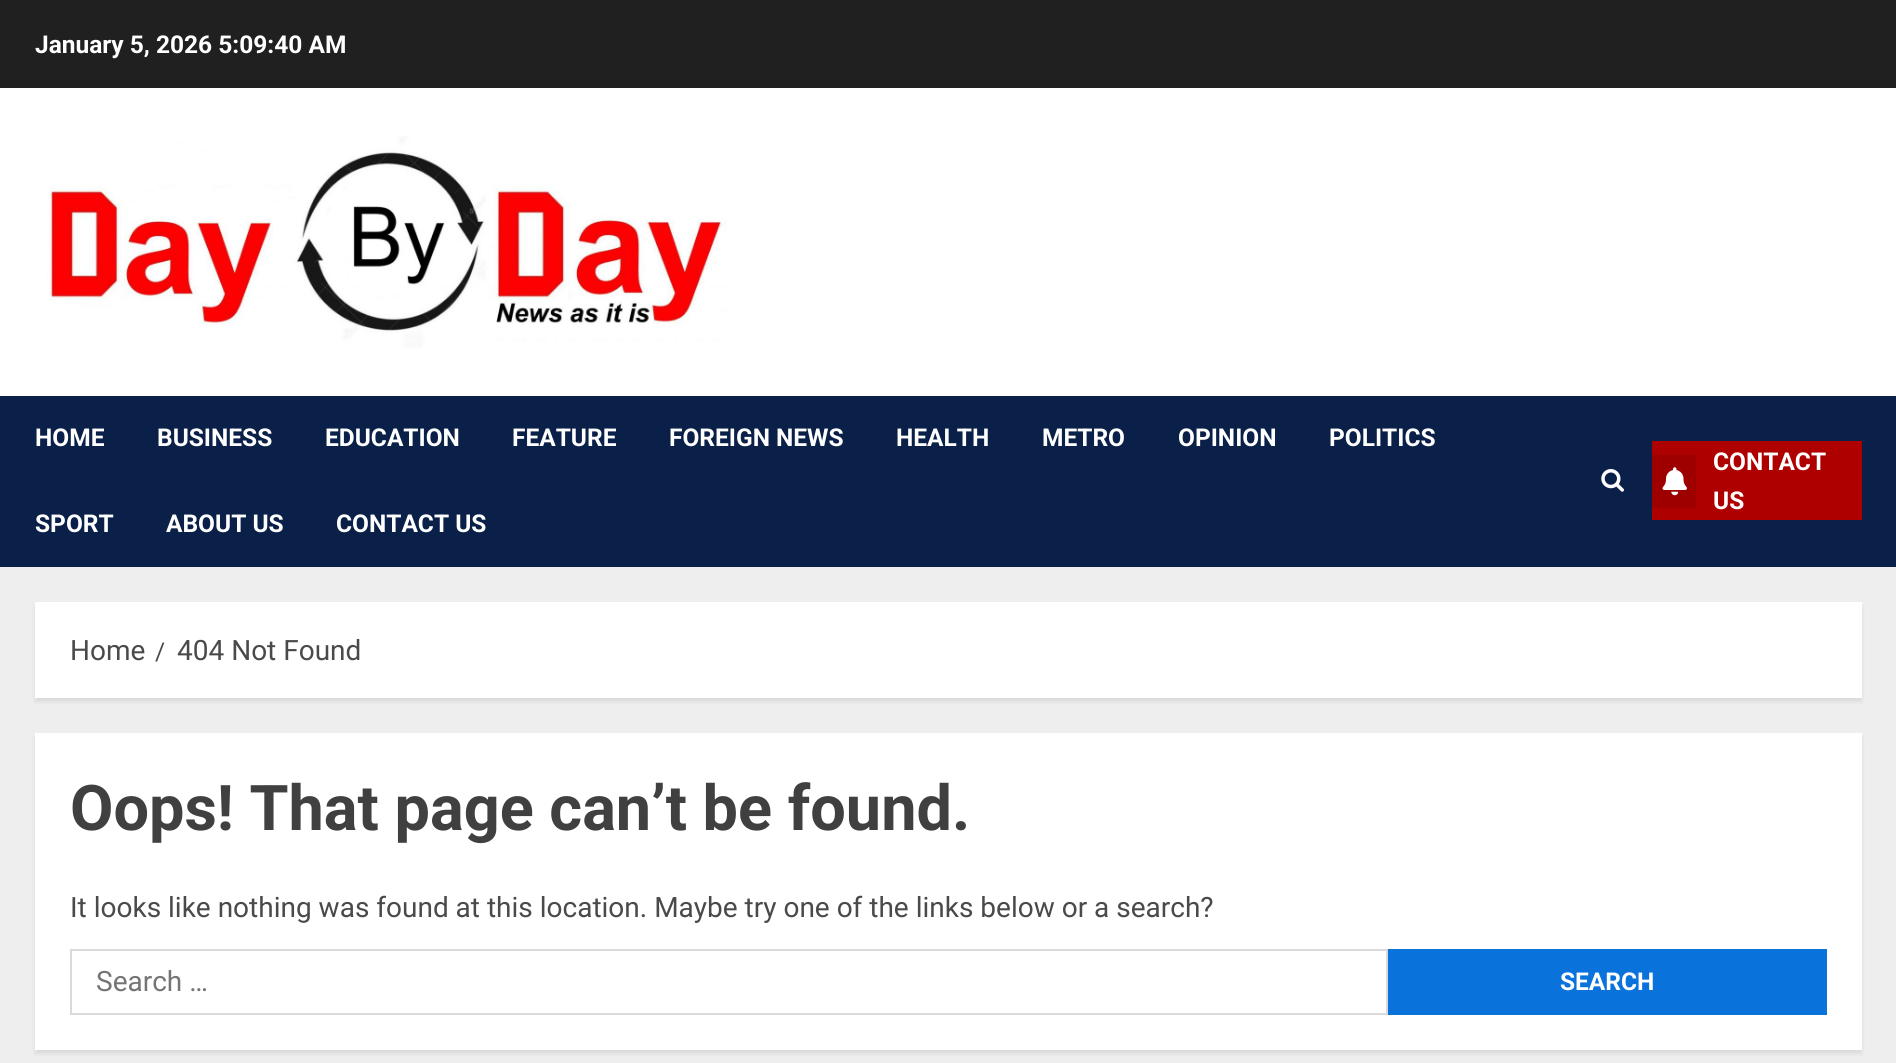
#include <cairo.h>
#include <math.h>
#include <stddef.h>

static cairo_t *ctx;

static void use_color(int r, int g, int b) {
    cairo_set_source_rgb(ctx, r / 255.0, g / 255.0, b / 255.0);
}

static void round_rect(double x, double y, double w, double h, double r) {
    cairo_new_sub_path(ctx);
    cairo_arc(ctx, x + w - r, y + h - r, r, 0, M_PI / 2);
    cairo_arc(ctx, x + r, y + h - r, r, M_PI / 2, M_PI);
    cairo_arc(ctx, x + r, y + r, r, M_PI, 1.5 * M_PI);
    cairo_arc(ctx, x + w - r, y + r, r, 1.5 * M_PI, 2 * M_PI);
    cairo_close_path(ctx);
}

static void shadow(double x, double y, double w, double h, double r, double blur, double alpha) {
    cairo_push_group_with_content(ctx, CAIRO_CONTENT_ALPHA);
    cairo_set_operator(ctx, CAIRO_OPERATOR_SOURCE);
    for (int i = 15; i >= -15 && fmin(w, h) + blur * i / 3 > 0; i -= 2) {
        double e = blur * i / 6;
        cairo_set_source_rgba(ctx, 0, 0, 0, alpha * erfc((i - 1) / 8.5) / 2);
        round_rect(x - e, y - e, w + 2 * e, h + 2 * e, fmax(0, fmin(r + e + blur * .6, fmin(w, h) / 2 + e)));
        cairo_fill(ctx);
    }
    cairo_pattern_t *soft = cairo_pop_group(ctx);
    cairo_mask(ctx, soft);
    cairo_pattern_destroy(soft);
}

static void picture(const char *path, double x, double y, double w, double h) {
    cairo_surface_t *image = cairo_image_surface_create_from_png(path);
    cairo_save(ctx);
    cairo_set_source_surface(ctx, image, x, y);
    cairo_rectangle(ctx, x, y, w, h);
    cairo_fill(ctx);
    cairo_restore(ctx);
    cairo_surface_destroy(image);
}

int main(void) {
    cairo_surface_t *surface = cairo_image_surface_create(CAIRO_FORMAT_RGB24, 1896, 1063);
    ctx = cairo_create(surface);
    cairo_font_options_t *options = cairo_font_options_create();
    cairo_font_options_set_hint_metrics(options, CAIRO_HINT_METRICS_OFF);
    cairo_font_options_set_hint_style(options, CAIRO_HINT_STYLE_NONE);
    cairo_set_font_options(ctx, options);
    cairo_set_miter_limit(ctx, 4);
    use_color(238, 238, 238);
    cairo_paint(ctx);
    use_color(32, 32, 32);
    cairo_rectangle(ctx, 0, 0, 1896, 88);
    cairo_fill(ctx);
    cairo_select_font_face(ctx, "Roboto", CAIRO_FONT_SLANT_NORMAL, CAIRO_FONT_WEIGHT_BOLD);
    cairo_set_font_size(ctx, 24.5);
    use_color(255, 255, 255);
    cairo_move_to(ctx, 35, 53);
    cairo_show_text(ctx, "January 5, 2026 5:09:40 AM");
    cairo_rectangle(ctx, 0, 88, 1896, 308);
    cairo_fill(ctx);
    picture("img1.png", 47, 136, 680, 213);
    use_color(11, 32, 72);
    cairo_rectangle(ctx, 0, 396, 1896, 171);
    cairo_fill(ctx);
    use_color(255, 255, 255);
    cairo_move_to(ctx, 35, 446);
    cairo_show_text(ctx, "HOME");
    cairo_move_to(ctx, 157, 446);
    cairo_show_text(ctx, "BUSINESS");
    cairo_move_to(ctx, 325, 446);
    cairo_show_text(ctx, "EDUCATION");
    cairo_move_to(ctx, 512, 446);
    cairo_show_text(ctx, "FEATURE");
    cairo_move_to(ctx, 669, 446);
    cairo_show_text(ctx, "FOREIGN NEWS");
    cairo_move_to(ctx, 896, 446);
    cairo_show_text(ctx, "HEALTH");
    cairo_move_to(ctx, 1042, 446);
    cairo_show_text(ctx, "METRO");
    cairo_move_to(ctx, 1178, 446);
    cairo_show_text(ctx, "OPINION");
    cairo_move_to(ctx, 1329, 446);
    cairo_show_text(ctx, "POLITICS");
    cairo_move_to(ctx, 35, 532);
    cairo_show_text(ctx, "SPORT");
    cairo_move_to(ctx, 166, 532);
    cairo_show_text(ctx, "ABOUT US");
    cairo_move_to(ctx, 336, 532);
    cairo_show_text(ctx, "CONTACT US");
    picture("img2.png", 1601, 469, 23, 23);
    use_color(175, 0, 0);
    cairo_rectangle(ctx, 1652, 441, 210, 79);
    cairo_fill(ctx);
    use_color(158, 0, 0);
    cairo_rectangle(ctx, 1652, 455, 44, 53);
    cairo_fill(ctx);
    picture("img3.png", 1662, 467, 25, 29);
    use_color(255, 255, 255);
    cairo_move_to(ctx, 1713, 470);
    cairo_show_text(ctx, "CONTACT");
    cairo_move_to(ctx, 1713, 509);
    cairo_show_text(ctx, "US");
    use_color(0, 0, 0);
    shadow(35, 606, 1827, 96, 0, 2, 0.08);
    use_color(255, 255, 255);
    cairo_rectangle(ctx, 35, 602, 1827, 96);
    cairo_fill(ctx);
    cairo_select_font_face(ctx, "Roboto", CAIRO_FONT_SLANT_NORMAL, CAIRO_FONT_WEIGHT_NORMAL);
    cairo_set_font_size(ctx, 28);
    use_color(74, 74, 74);
    cairo_move_to(ctx, 70, 660);
    cairo_show_text(ctx, "Home");
    cairo_set_font_size(ctx, 24.5);
    cairo_move_to(ctx, 155, 660);
    cairo_show_text(ctx, "/");
    cairo_set_font_size(ctx, 28);
    cairo_move_to(ctx, 177, 660);
    cairo_show_text(ctx, "404 Not Found");
    use_color(0, 0, 0);
    shadow(35, 737, 1827, 317, 0, 2, 0.08);
    use_color(255, 255, 255);
    cairo_rectangle(ctx, 35, 733, 1827, 317);
    cairo_fill(ctx);
    cairo_select_font_face(ctx, "Roboto", CAIRO_FONT_SLANT_NORMAL, CAIRO_FONT_WEIGHT_BOLD);
    cairo_set_font_size(ctx, 63);
    use_color(64, 64, 64);
    cairo_move_to(ctx, 70, 830);
    cairo_show_text(ctx, "Oops! That page can’t be found.");
    cairo_select_font_face(ctx, "Roboto", CAIRO_FONT_SLANT_NORMAL, CAIRO_FONT_WEIGHT_NORMAL);
    cairo_set_font_size(ctx, 28);
    use_color(74, 74, 74);
    cairo_move_to(ctx, 70, 917);
    cairo_show_text(ctx, "It looks like nothing was found at this location. Maybe try one of the links below or a search?");
    cairo_rectangle(ctx, 71, 950, 1316, 64);
    use_color(217, 217, 217);
    cairo_stroke(ctx);
    use_color(117, 117, 117);
    cairo_move_to(ctx, 96, 991);
    cairo_show_text(ctx, "Search …");
    use_color(10, 114, 219);
    cairo_rectangle(ctx, 1388, 949, 439, 66);
    cairo_fill(ctx);
    cairo_select_font_face(ctx, "Roboto", CAIRO_FONT_SLANT_NORMAL, CAIRO_FONT_WEIGHT_BOLD);
    cairo_set_font_size(ctx, 24.5);
    use_color(255, 255, 255);
    cairo_move_to(ctx, 1560, 990);
    cairo_show_text(ctx, "SEARCH");
    cairo_surface_write_to_png(surface, "result.png");
    cairo_font_options_destroy(options);
    cairo_destroy(ctx);
    cairo_surface_destroy(surface);
    return 0;
}
